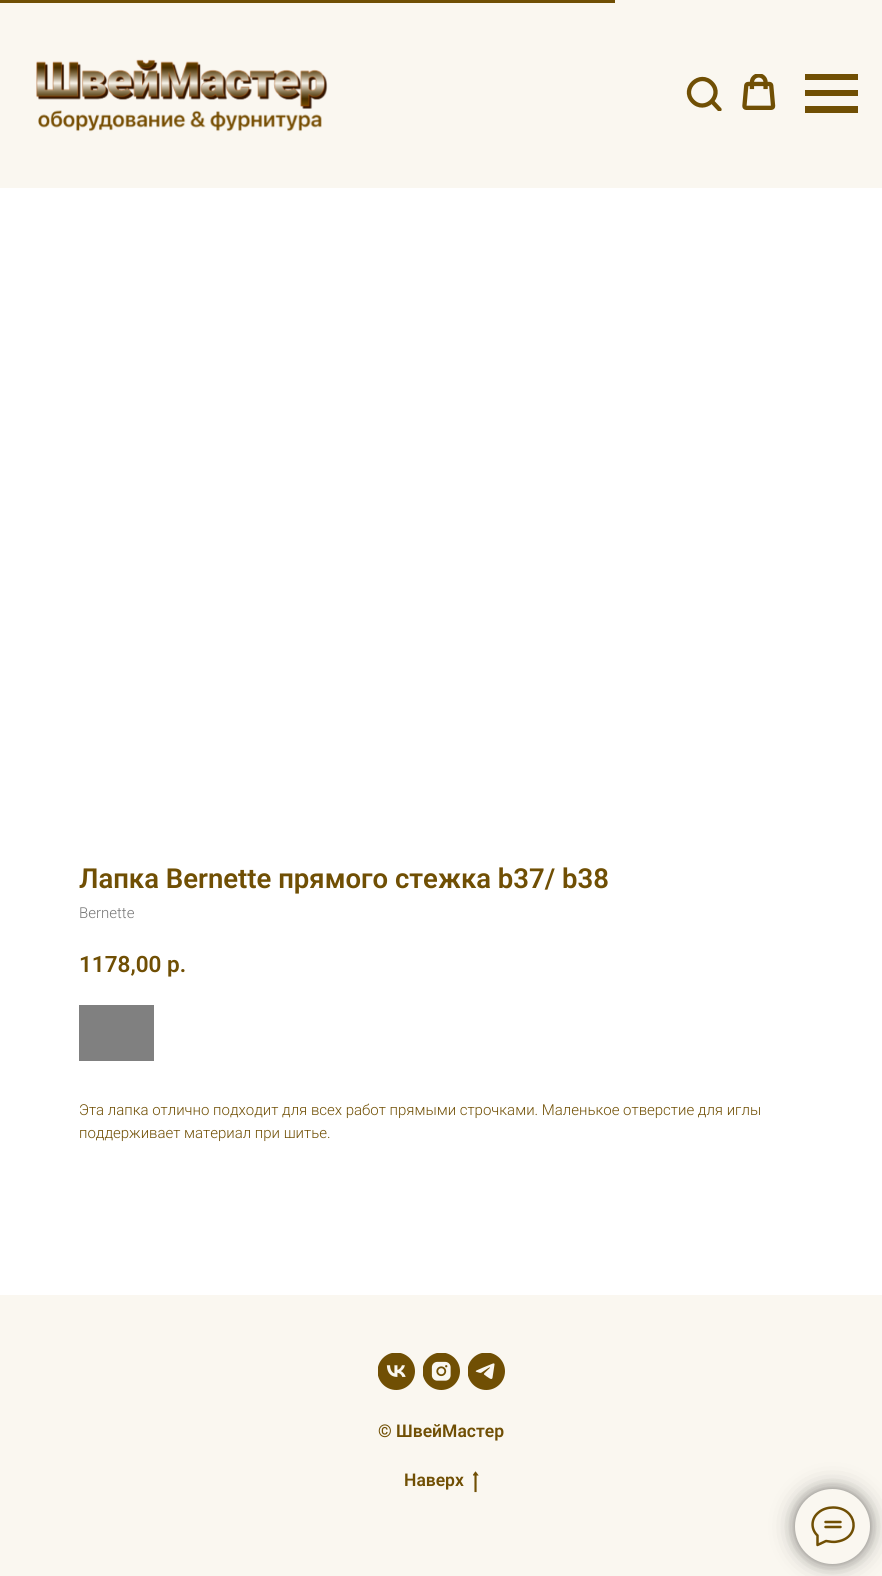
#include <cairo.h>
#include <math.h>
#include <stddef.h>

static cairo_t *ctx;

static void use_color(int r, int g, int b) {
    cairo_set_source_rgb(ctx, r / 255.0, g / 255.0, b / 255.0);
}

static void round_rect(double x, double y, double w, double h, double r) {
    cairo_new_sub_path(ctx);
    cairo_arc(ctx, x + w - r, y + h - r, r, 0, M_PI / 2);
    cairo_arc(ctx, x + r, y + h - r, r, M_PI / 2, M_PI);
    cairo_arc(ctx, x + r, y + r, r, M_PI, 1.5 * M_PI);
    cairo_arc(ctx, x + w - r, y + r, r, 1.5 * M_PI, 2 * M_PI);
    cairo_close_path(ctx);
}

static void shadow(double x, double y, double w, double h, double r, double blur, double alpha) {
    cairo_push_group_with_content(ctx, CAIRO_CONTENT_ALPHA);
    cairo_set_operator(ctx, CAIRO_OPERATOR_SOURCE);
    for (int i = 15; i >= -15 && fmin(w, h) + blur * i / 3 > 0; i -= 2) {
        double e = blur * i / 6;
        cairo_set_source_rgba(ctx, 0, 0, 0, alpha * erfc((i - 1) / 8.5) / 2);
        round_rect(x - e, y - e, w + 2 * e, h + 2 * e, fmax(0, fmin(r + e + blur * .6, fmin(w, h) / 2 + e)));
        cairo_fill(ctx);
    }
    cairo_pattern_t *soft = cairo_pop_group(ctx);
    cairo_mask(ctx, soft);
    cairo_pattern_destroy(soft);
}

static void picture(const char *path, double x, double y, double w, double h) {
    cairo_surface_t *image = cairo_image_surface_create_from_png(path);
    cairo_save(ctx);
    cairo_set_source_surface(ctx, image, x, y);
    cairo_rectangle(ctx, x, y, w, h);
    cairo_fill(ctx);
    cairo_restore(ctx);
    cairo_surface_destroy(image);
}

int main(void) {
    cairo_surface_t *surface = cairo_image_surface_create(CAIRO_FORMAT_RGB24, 882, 1576);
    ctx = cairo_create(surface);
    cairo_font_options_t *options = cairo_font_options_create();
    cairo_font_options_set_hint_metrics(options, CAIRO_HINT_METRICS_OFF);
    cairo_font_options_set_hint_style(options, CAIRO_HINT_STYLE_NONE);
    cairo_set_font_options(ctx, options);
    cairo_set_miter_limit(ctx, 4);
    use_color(255, 255, 255);
    cairo_paint(ctx);
    use_color(250, 247, 240);
    cairo_rectangle(ctx, 0, 0, 882, 188);
    cairo_fill(ctx);
    picture("img1.png", 36, 59, 292, 73);
    cairo_new_path(ctx);
    cairo_move_to(ctx, 712, 83.5);
    cairo_curve_to(ctx, 723.5, 96, 704.5, 114, 692.5, 101);
    cairo_curve_to(ctx, 681, 88.5, 700, 70.5, 712, 83.5);
    cairo_close_path(ctx);
    use_color(112, 79, 4);
    cairo_set_line_width(ctx, 4.3);
    cairo_stroke(ctx);
    cairo_save(ctx);
    cairo_rectangle(ctx, 685, 74, 38, 37);
    cairo_clip(ctx);
    cairo_new_path(ctx);
    cairo_move_to(ctx, 713, 102.5);
    cairo_line_to(ctx, 719.5, 109.5);
    cairo_set_line_cap(ctx, CAIRO_LINE_CAP_ROUND);
    cairo_stroke(ctx);
    cairo_restore(ctx);
    picture("img2.png", 742, 74, 34, 36);
    cairo_rectangle(ctx, 805, 74, 53, 6);
    cairo_fill(ctx);
    cairo_rectangle(ctx, 805, 90, 53, 6);
    cairo_fill(ctx);
    cairo_rectangle(ctx, 805, 106, 53, 7);
    cairo_fill(ctx);
    cairo_rectangle(ctx, 0, 0, 615, 3);
    cairo_fill(ctx);
    cairo_select_font_face(ctx, "Roboto SemiBold", CAIRO_FONT_SLANT_NORMAL, CAIRO_FONT_WEIGHT_NORMAL);
    cairo_set_font_size(ctx, 27.5);
    cairo_move_to(ctx, 79, 888);
    cairo_show_text(ctx, "Лапка Bernette прямого стежка b37/ b38");
    cairo_select_font_face(ctx, "Roboto Light", CAIRO_FONT_SLANT_NORMAL, CAIRO_FONT_WEIGHT_NORMAL);
    cairo_set_font_size(ctx, 15);
    use_color(119, 119, 119);
    cairo_move_to(ctx, 79, 918);
    cairo_show_text(ctx, "Bernette");
    cairo_select_font_face(ctx, "Roboto SemiBold", CAIRO_FONT_SLANT_NORMAL, CAIRO_FONT_WEIGHT_NORMAL);
    cairo_set_font_size(ctx, 22.5);
    use_color(112, 79, 4);
    cairo_move_to(ctx, 79, 972);
    cairo_show_text(ctx, "1178,00");
    cairo_move_to(ctx, 167, 972);
    cairo_show_text(ctx, "р.");
    use_color(128, 128, 128);
    cairo_rectangle(ctx, 79, 1005, 75, 56);
    cairo_fill(ctx);
    cairo_select_font_face(ctx, "Roboto Light", CAIRO_FONT_SLANT_NORMAL, CAIRO_FONT_WEIGHT_NORMAL);
    cairo_set_font_size(ctx, 15);
    use_color(112, 79, 4);
    cairo_move_to(ctx, 79, 1115);
    cairo_show_text(ctx, "Эта лапка отлично подходит для всех работ прямыми строчками. Маленькое отверстие для иглы");
    cairo_move_to(ctx, 79, 1138);
    cairo_show_text(ctx, "поддерживает материал при шитье.");
    use_color(250, 247, 240);
    cairo_rectangle(ctx, 0, 1295, 882, 281);
    cairo_fill(ctx);
    picture("img3.png", 378, 1353, 37, 37);
    picture("img4.png", 423, 1353, 37, 37);
    picture("img5.png", 468, 1353, 37, 37);
    cairo_select_font_face(ctx, "Roboto SemiBold", CAIRO_FONT_SLANT_NORMAL, CAIRO_FONT_WEIGHT_NORMAL);
    cairo_set_font_size(ctx, 17.5);
    use_color(112, 79, 4);
    cairo_move_to(ctx, 378, 1437);
    cairo_show_text(ctx, "© ШвейМастер");
    cairo_move_to(ctx, 404, 1486);
    cairo_show_text(ctx, "Наверх");
    picture("img6.png", 473, 1471, 6, 22);
    use_color(0, 0, 0);
    shadow(795, 1489, 75, 75, 37.5, 12.5, 0.3);
    shadow(795, 1489, 75, 75, 37.5, 6, 0.3);
    use_color(250, 247, 240);
    cairo_arc(ctx, 832.5, 1526.5, 37.5, 0, 2 * M_PI);
    cairo_fill(ctx);
    cairo_new_path(ctx);
    cairo_move_to(ctx, 825.5, 1522);
    cairo_line_to(ctx, 840.5, 1522);
    cairo_move_to(ctx, 825.5, 1527);
    cairo_line_to(ctx, 840.5, 1527);
    cairo_move_to(ctx, 817.5, 1535.5);
    cairo_curve_to(ctx, 810.5, 1529, 811, 1518.5, 818.5, 1512.5);
    cairo_curve_to(ctx, 822.5, 1509, 828, 1507.5, 833, 1507.5);
    cairo_curve_to(ctx, 857.5, 1507.5, 861.5, 1537.5, 837.5, 1541.5);
    cairo_curve_to(ctx, 833, 1542.5, 830, 1541.5, 826, 1541);
    cairo_line_to(ctx, 817.5, 1545);
    cairo_close_path(ctx);
    use_color(112, 79, 4);
    cairo_set_line_width(ctx, 2.5);
    cairo_set_line_cap(ctx, CAIRO_LINE_CAP_ROUND);
    cairo_set_line_join(ctx, CAIRO_LINE_JOIN_ROUND);
    cairo_stroke(ctx);
    cairo_surface_write_to_png(surface, "result.png");
    cairo_font_options_destroy(options);
    cairo_destroy(ctx);
    cairo_surface_destroy(surface);
    return 0;
}
